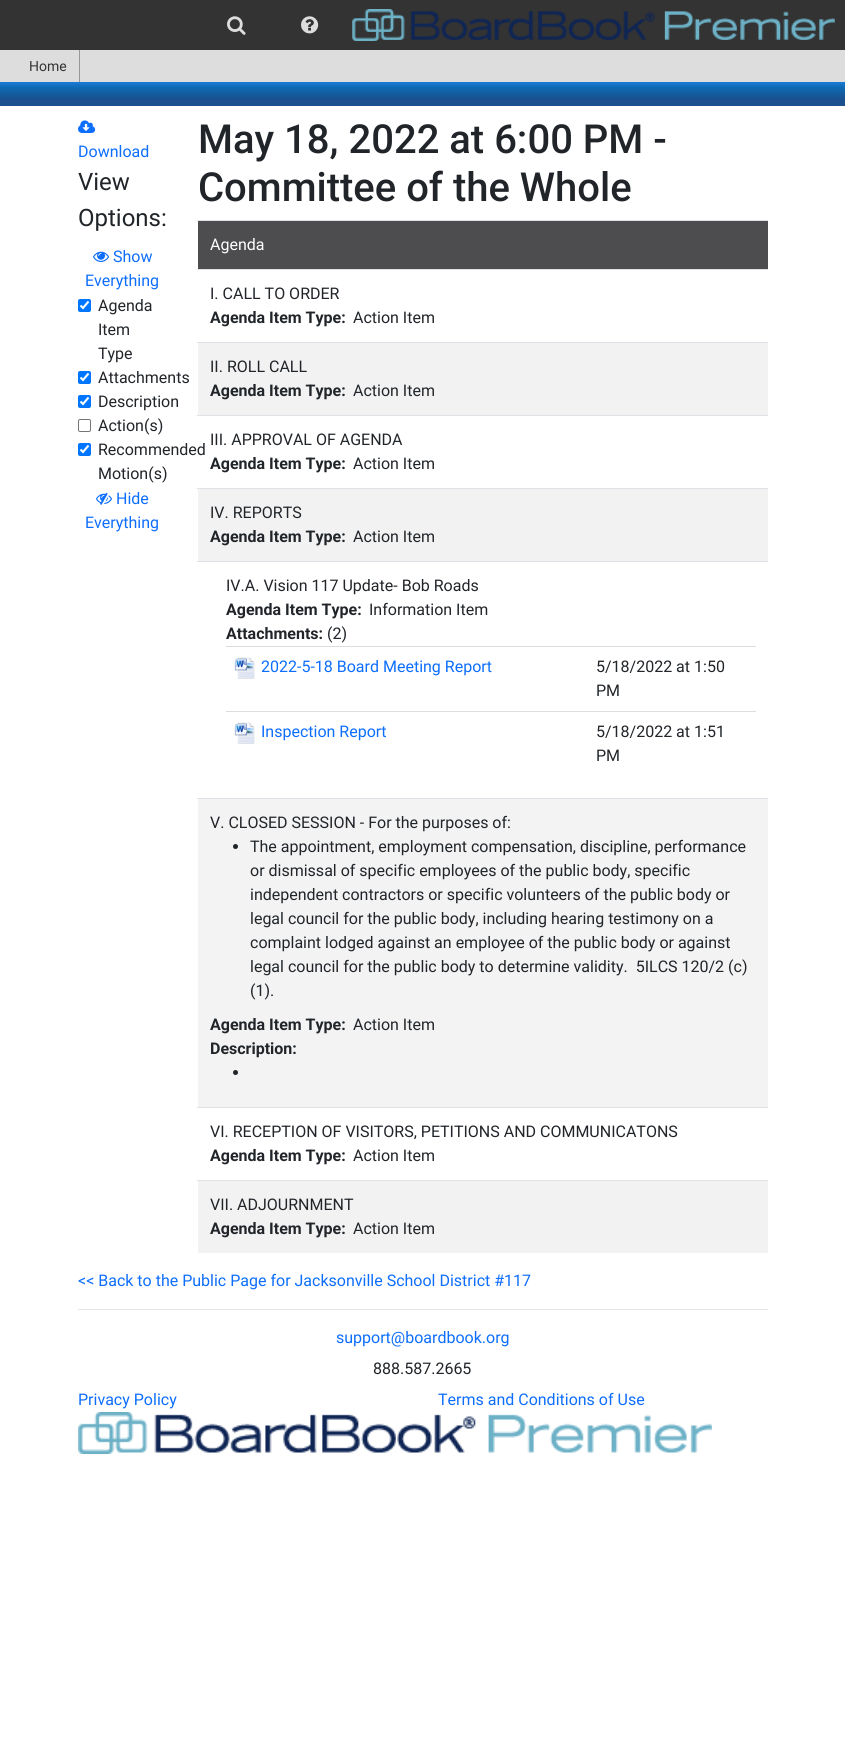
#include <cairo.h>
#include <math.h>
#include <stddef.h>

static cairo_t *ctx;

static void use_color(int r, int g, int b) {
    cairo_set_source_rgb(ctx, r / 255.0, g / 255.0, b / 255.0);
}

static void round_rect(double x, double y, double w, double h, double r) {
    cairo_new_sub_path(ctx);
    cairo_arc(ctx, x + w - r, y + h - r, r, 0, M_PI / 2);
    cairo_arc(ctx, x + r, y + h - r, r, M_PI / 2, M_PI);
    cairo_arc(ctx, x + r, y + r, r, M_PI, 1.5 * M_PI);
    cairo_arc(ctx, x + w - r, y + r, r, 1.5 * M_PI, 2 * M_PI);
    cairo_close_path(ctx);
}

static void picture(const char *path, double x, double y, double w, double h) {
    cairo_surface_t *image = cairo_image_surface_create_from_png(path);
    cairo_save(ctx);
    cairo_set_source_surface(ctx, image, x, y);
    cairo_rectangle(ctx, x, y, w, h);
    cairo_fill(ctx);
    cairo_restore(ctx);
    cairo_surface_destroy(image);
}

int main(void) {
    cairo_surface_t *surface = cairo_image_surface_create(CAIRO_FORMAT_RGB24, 845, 1750);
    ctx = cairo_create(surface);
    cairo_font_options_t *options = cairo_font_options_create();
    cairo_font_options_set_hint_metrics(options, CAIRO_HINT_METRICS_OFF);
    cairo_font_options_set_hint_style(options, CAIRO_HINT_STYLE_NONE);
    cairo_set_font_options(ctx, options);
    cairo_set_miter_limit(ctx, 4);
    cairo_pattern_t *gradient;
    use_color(255, 255, 255);
    cairo_paint(ctx);
    use_color(51, 51, 51);
    cairo_rectangle(ctx, 0, 0, 845, 50);
    cairo_fill(ctx);
    picture("img1.png", 227, 16, 19, 19);
    picture("img2.png", 301, 16, 18, 18);
    picture("img3.png", 352, 9, 483, 32);
    use_color(221, 221, 221);
    cairo_rectangle(ctx, 0, 50, 845, 32);
    cairo_fill(ctx);
    use_color(151, 151, 151);
    cairo_rectangle(ctx, 79, 50, 1, 32);
    cairo_fill(ctx);
    cairo_select_font_face(ctx, "Roboto", CAIRO_FONT_SLANT_NORMAL, CAIRO_FONT_WEIGHT_NORMAL);
    cairo_set_font_size(ctx, 14);
    use_color(51, 51, 51);
    cairo_move_to(ctx, 29, 71);
    cairo_show_text(ctx, "Home");
    gradient = cairo_pattern_create_linear(423, 106, 423, 82);
    cairo_pattern_add_color_stop_rgba(gradient, 0.29, 0.106, 0.318, 0.561, 1);
    cairo_pattern_add_color_stop_rgba(gradient, 0.79, 0.051, 0.42, 0.71, 1);
    cairo_pattern_add_color_stop_rgba(gradient, 0.95, 0.098, 0.471, 0.816, 1);
    cairo_set_source(ctx, gradient);
    cairo_pattern_destroy(gradient);
    cairo_rectangle(ctx, 0, 82, 845, 24);
    cairo_fill(ctx);
    picture("img4.png", 78, 120, 18, 13);
    cairo_set_font_size(ctx, 16);
    use_color(13, 110, 253);
    cairo_move_to(ctx, 78, 157);
    cairo_show_text(ctx, "Download");
    cairo_set_font_size(ctx, 24);
    use_color(33, 37, 41);
    cairo_move_to(ctx, 78, 190);
    cairo_show_text(ctx, "View");
    cairo_move_to(ctx, 78, 226);
    cairo_show_text(ctx, "Options:");
    picture("img5.png", 93, 251, 16, 11);
    cairo_set_font_size(ctx, 16);
    use_color(13, 110, 253);
    cairo_move_to(ctx, 113, 262);
    cairo_show_text(ctx, "Show");
    cairo_move_to(ctx, 85, 286);
    cairo_show_text(ctx, "Everything");
    use_color(0, 117, 255);
    round_rect(78, 299, 13, 13, 2);
    cairo_fill(ctx);
    cairo_new_path(ctx);
    cairo_move_to(ctx, 80.5, 305.5);
    cairo_line_to(ctx, 83, 308);
    cairo_line_to(ctx, 88.5, 301.5);
    use_color(255, 255, 255);
    cairo_set_line_width(ctx, 2.1);
    cairo_stroke(ctx);
    use_color(33, 37, 41);
    cairo_move_to(ctx, 98, 311);
    cairo_show_text(ctx, "Agenda");
    cairo_move_to(ctx, 98, 335);
    cairo_show_text(ctx, "Item");
    cairo_move_to(ctx, 98, 359);
    cairo_show_text(ctx, "Type");
    use_color(0, 117, 255);
    round_rect(78, 371, 13, 13, 2);
    cairo_fill(ctx);
    cairo_new_path(ctx);
    cairo_move_to(ctx, 80.5, 377.5);
    cairo_line_to(ctx, 83, 380);
    cairo_line_to(ctx, 88.5, 373.5);
    use_color(255, 255, 255);
    cairo_stroke(ctx);
    use_color(33, 37, 41);
    cairo_move_to(ctx, 98, 383);
    cairo_show_text(ctx, "Attachments");
    use_color(0, 117, 255);
    round_rect(78, 395, 13, 13, 2);
    cairo_fill(ctx);
    cairo_new_path(ctx);
    cairo_move_to(ctx, 80.5, 401.5);
    cairo_line_to(ctx, 83, 404);
    cairo_line_to(ctx, 88.5, 397.5);
    use_color(255, 255, 255);
    cairo_stroke(ctx);
    use_color(33, 37, 41);
    cairo_move_to(ctx, 98, 407);
    cairo_show_text(ctx, "Description");
    round_rect(78.5, 419.5, 12, 12, 1.5);
    use_color(118, 118, 118);
    cairo_set_line_width(ctx, 1);
    cairo_stroke(ctx);
    use_color(33, 37, 41);
    cairo_move_to(ctx, 98, 431);
    cairo_show_text(ctx, "Action(s)");
    use_color(0, 117, 255);
    round_rect(78, 443, 13, 13, 2);
    cairo_fill(ctx);
    cairo_new_path(ctx);
    cairo_move_to(ctx, 80.5, 449.5);
    cairo_line_to(ctx, 83, 452);
    cairo_line_to(ctx, 88.5, 445.5);
    use_color(255, 255, 255);
    cairo_set_line_width(ctx, 2.1);
    cairo_stroke(ctx);
    use_color(33, 37, 41);
    cairo_move_to(ctx, 98, 455);
    cairo_show_text(ctx, "Recommended");
    cairo_move_to(ctx, 98, 479);
    cairo_show_text(ctx, "Motion(s)");
    picture("img6.png", 96, 492, 16, 13);
    use_color(13, 110, 253);
    cairo_move_to(ctx, 116, 504);
    cairo_show_text(ctx, "Hide");
    cairo_move_to(ctx, 85, 528);
    cairo_show_text(ctx, "Everything");
    cairo_select_font_face(ctx, "Roboto Medium", CAIRO_FONT_SLANT_NORMAL, CAIRO_FONT_WEIGHT_NORMAL);
    cairo_set_font_size(ctx, 40);
    use_color(33, 37, 41);
    cairo_move_to(ctx, 198, 153);
    cairo_show_text(ctx, "May 18, 2022 at 6:00 PM -");
    cairo_move_to(ctx, 198, 201);
    cairo_show_text(ctx, "Committee of the Whole");
    use_color(77, 77, 79);
    cairo_rectangle(ctx, 198, 221, 570, 48);
    cairo_fill(ctx);
    use_color(222, 226, 230);
    cairo_rectangle(ctx, 197, 220, 571, 1);
    cairo_fill(ctx);
    cairo_select_font_face(ctx, "Roboto", CAIRO_FONT_SLANT_NORMAL, CAIRO_FONT_WEIGHT_NORMAL);
    cairo_set_font_size(ctx, 16);
    use_color(255, 255, 255);
    cairo_move_to(ctx, 210, 250);
    cairo_show_text(ctx, "Agenda");
    use_color(222, 226, 230);
    cairo_rectangle(ctx, 197, 269, 571, 1);
    cairo_fill(ctx);
    use_color(33, 37, 41);
    cairo_move_to(ctx, 210, 299);
    cairo_show_text(ctx, "I. CALL TO ORDER");
    cairo_select_font_face(ctx, "Roboto", CAIRO_FONT_SLANT_NORMAL, CAIRO_FONT_WEIGHT_BOLD);
    cairo_move_to(ctx, 210, 323);
    cairo_show_text(ctx, "Agenda Item Type:");
    cairo_select_font_face(ctx, "Roboto", CAIRO_FONT_SLANT_NORMAL, CAIRO_FONT_WEIGHT_NORMAL);
    cairo_move_to(ctx, 353, 323);
    cairo_show_text(ctx, "Action Item");
    use_color(242, 242, 242);
    cairo_rectangle(ctx, 198, 343, 570, 72);
    cairo_fill(ctx);
    use_color(222, 226, 230);
    cairo_rectangle(ctx, 197, 342, 571, 1);
    cairo_fill(ctx);
    use_color(33, 37, 41);
    cairo_move_to(ctx, 210, 372);
    cairo_show_text(ctx, "II. ROLL CALL");
    cairo_select_font_face(ctx, "Roboto", CAIRO_FONT_SLANT_NORMAL, CAIRO_FONT_WEIGHT_BOLD);
    cairo_move_to(ctx, 210, 396);
    cairo_show_text(ctx, "Agenda Item Type:");
    cairo_select_font_face(ctx, "Roboto", CAIRO_FONT_SLANT_NORMAL, CAIRO_FONT_WEIGHT_NORMAL);
    cairo_move_to(ctx, 353, 396);
    cairo_show_text(ctx, "Action Item");
    use_color(222, 226, 230);
    cairo_rectangle(ctx, 197, 415, 571, 1);
    cairo_fill(ctx);
    use_color(33, 37, 41);
    cairo_move_to(ctx, 210, 445);
    cairo_show_text(ctx, "III. APPROVAL OF AGENDA");
    cairo_select_font_face(ctx, "Roboto", CAIRO_FONT_SLANT_NORMAL, CAIRO_FONT_WEIGHT_BOLD);
    cairo_move_to(ctx, 210, 469);
    cairo_show_text(ctx, "Agenda Item Type:");
    cairo_select_font_face(ctx, "Roboto", CAIRO_FONT_SLANT_NORMAL, CAIRO_FONT_WEIGHT_NORMAL);
    cairo_move_to(ctx, 353, 469);
    cairo_show_text(ctx, "Action Item");
    use_color(242, 242, 242);
    cairo_rectangle(ctx, 198, 489, 570, 72);
    cairo_fill(ctx);
    use_color(222, 226, 230);
    cairo_rectangle(ctx, 197, 488, 571, 1);
    cairo_fill(ctx);
    use_color(33, 37, 41);
    cairo_move_to(ctx, 210, 518);
    cairo_show_text(ctx, "IV. REPORTS");
    cairo_select_font_face(ctx, "Roboto", CAIRO_FONT_SLANT_NORMAL, CAIRO_FONT_WEIGHT_BOLD);
    cairo_move_to(ctx, 210, 542);
    cairo_show_text(ctx, "Agenda Item Type:");
    cairo_select_font_face(ctx, "Roboto", CAIRO_FONT_SLANT_NORMAL, CAIRO_FONT_WEIGHT_NORMAL);
    cairo_move_to(ctx, 353, 542);
    cairo_show_text(ctx, "Action Item");
    use_color(222, 226, 230);
    cairo_rectangle(ctx, 197, 561, 571, 1);
    cairo_fill(ctx);
    use_color(33, 37, 41);
    cairo_move_to(ctx, 226, 591);
    cairo_show_text(ctx, "IV.A. Vision 117 Update- Bob Roads");
    cairo_select_font_face(ctx, "Roboto", CAIRO_FONT_SLANT_NORMAL, CAIRO_FONT_WEIGHT_BOLD);
    cairo_move_to(ctx, 226, 615);
    cairo_show_text(ctx, "Agenda Item Type:");
    cairo_select_font_face(ctx, "Roboto", CAIRO_FONT_SLANT_NORMAL, CAIRO_FONT_WEIGHT_NORMAL);
    cairo_move_to(ctx, 369, 615);
    cairo_show_text(ctx, "Information Item");
    cairo_select_font_face(ctx, "Roboto", CAIRO_FONT_SLANT_NORMAL, CAIRO_FONT_WEIGHT_BOLD);
    cairo_move_to(ctx, 226, 639);
    cairo_show_text(ctx, "Attachments:");
    cairo_select_font_face(ctx, "Roboto", CAIRO_FONT_SLANT_NORMAL, CAIRO_FONT_WEIGHT_NORMAL);
    cairo_move_to(ctx, 327, 639);
    cairo_show_text(ctx, "(2)");
    use_color(221, 221, 221);
    cairo_rectangle(ctx, 226, 646, 530, 1);
    cairo_fill(ctx);
    picture("img7.png", 234, 657, 21, 22);
    use_color(13, 110, 253);
    cairo_move_to(ctx, 261, 672);
    cairo_show_text(ctx, "2022-5-18 Board Meeting Report");
    use_color(33, 37, 41);
    cairo_move_to(ctx, 596, 672);
    cairo_show_text(ctx, "5/18/2022 at 1:50");
    cairo_move_to(ctx, 596, 696);
    cairo_show_text(ctx, "PM");
    use_color(221, 221, 221);
    cairo_rectangle(ctx, 226, 711, 530, 1);
    cairo_fill(ctx);
    picture("img7.png", 234, 722, 21, 22);
    use_color(13, 110, 253);
    cairo_move_to(ctx, 261, 737);
    cairo_show_text(ctx, "Inspection Report");
    use_color(33, 37, 41);
    cairo_move_to(ctx, 596, 737);
    cairo_show_text(ctx, "5/18/2022 at 1:51");
    cairo_move_to(ctx, 596, 761);
    cairo_show_text(ctx, "PM");
    use_color(243, 243, 243);
    cairo_rectangle(ctx, 198, 799, 570, 308);
    cairo_fill(ctx);
    use_color(222, 226, 230);
    cairo_rectangle(ctx, 197, 798, 571, 1);
    cairo_fill(ctx);
    use_color(33, 37, 41);
    cairo_move_to(ctx, 210, 828);
    cairo_show_text(ctx, "V. CLOSED SESSION - For the purposes of:");
    cairo_new_path(ctx);
    cairo_arc(ctx, 235.5, 846.5, 2.5, 0, 2 * M_PI);
    cairo_fill(ctx);
    cairo_move_to(ctx, 250, 852);
    cairo_show_text(ctx, "The appointment, employment compensation, discipline, performance");
    cairo_move_to(ctx, 250, 876);
    cairo_show_text(ctx, "or dismissal of specific employees of the public body, specific");
    cairo_move_to(ctx, 250, 900);
    cairo_show_text(ctx, "independent contractors or specific volunteers of the public body or");
    cairo_move_to(ctx, 250, 924);
    cairo_show_text(ctx, "legal council for the public body, including hearing testimony on a");
    cairo_move_to(ctx, 250, 948);
    cairo_show_text(ctx, "complaint lodged against an employee of the public body or against");
    cairo_move_to(ctx, 250, 972);
    cairo_show_text(ctx, "legal council for the public body to determine validity.  5ILCS 120/2 (c)");
    cairo_move_to(ctx, 250, 996);
    cairo_show_text(ctx, "(1).");
    cairo_select_font_face(ctx, "Roboto", CAIRO_FONT_SLANT_NORMAL, CAIRO_FONT_WEIGHT_BOLD);
    cairo_move_to(ctx, 210, 1030);
    cairo_show_text(ctx, "Agenda Item Type:");
    cairo_select_font_face(ctx, "Roboto", CAIRO_FONT_SLANT_NORMAL, CAIRO_FONT_WEIGHT_NORMAL);
    cairo_move_to(ctx, 353, 1030);
    cairo_show_text(ctx, "Action Item");
    cairo_select_font_face(ctx, "Roboto", CAIRO_FONT_SLANT_NORMAL, CAIRO_FONT_WEIGHT_BOLD);
    cairo_move_to(ctx, 210, 1054);
    cairo_show_text(ctx, "Description:");
    cairo_new_path(ctx);
    cairo_arc(ctx, 235.5, 1072.5, 2.5, 0, 2 * M_PI);
    cairo_fill(ctx);
    use_color(222, 226, 230);
    cairo_rectangle(ctx, 197, 1107, 571, 1);
    cairo_fill(ctx);
    cairo_select_font_face(ctx, "Roboto", CAIRO_FONT_SLANT_NORMAL, CAIRO_FONT_WEIGHT_NORMAL);
    use_color(33, 37, 41);
    cairo_move_to(ctx, 210, 1137);
    cairo_show_text(ctx, "VI. RECEPTION OF VISITORS, PETITIONS AND COMMUNICATONS");
    cairo_select_font_face(ctx, "Roboto", CAIRO_FONT_SLANT_NORMAL, CAIRO_FONT_WEIGHT_BOLD);
    cairo_move_to(ctx, 210, 1161);
    cairo_show_text(ctx, "Agenda Item Type:");
    cairo_select_font_face(ctx, "Roboto", CAIRO_FONT_SLANT_NORMAL, CAIRO_FONT_WEIGHT_NORMAL);
    cairo_move_to(ctx, 353, 1161);
    cairo_show_text(ctx, "Action Item");
    use_color(242, 242, 242);
    cairo_rectangle(ctx, 198, 1181, 570, 72);
    cairo_fill(ctx);
    use_color(222, 226, 230);
    cairo_rectangle(ctx, 197, 1180, 571, 1);
    cairo_fill(ctx);
    use_color(33, 37, 41);
    cairo_move_to(ctx, 210, 1210);
    cairo_show_text(ctx, "VII. ADJOURNMENT");
    cairo_select_font_face(ctx, "Roboto", CAIRO_FONT_SLANT_NORMAL, CAIRO_FONT_WEIGHT_BOLD);
    cairo_move_to(ctx, 210, 1234);
    cairo_show_text(ctx, "Agenda Item Type:");
    cairo_select_font_face(ctx, "Roboto", CAIRO_FONT_SLANT_NORMAL, CAIRO_FONT_WEIGHT_NORMAL);
    cairo_move_to(ctx, 353, 1234);
    cairo_show_text(ctx, "Action Item");
    use_color(13, 110, 253);
    cairo_move_to(ctx, 78, 1286);
    cairo_show_text(ctx, "<< Back to the Public Page for Jacksonville School District #117");
    use_color(230, 230, 230);
    cairo_rectangle(ctx, 78, 1309, 690, 1);
    cairo_fill(ctx);
    use_color(13, 110, 253);
    cairo_move_to(ctx, 336, 1343);
    cairo_show_text(ctx, "support@boardbook.org");
    use_color(33, 37, 41);
    cairo_move_to(ctx, 373, 1374);
    cairo_show_text(ctx, "888.587.2665");
    use_color(13, 110, 253);
    cairo_move_to(ctx, 78, 1405);
    cairo_show_text(ctx, "Privacy Policy");
    cairo_move_to(ctx, 438, 1405);
    cairo_show_text(ctx, "Terms and Conditions of Use");
    picture("img8.png", 78, 1412, 634, 42);
    cairo_surface_write_to_png(surface, "result.png");
    cairo_font_options_destroy(options);
    cairo_destroy(ctx);
    cairo_surface_destroy(surface);
    return 0;
}
